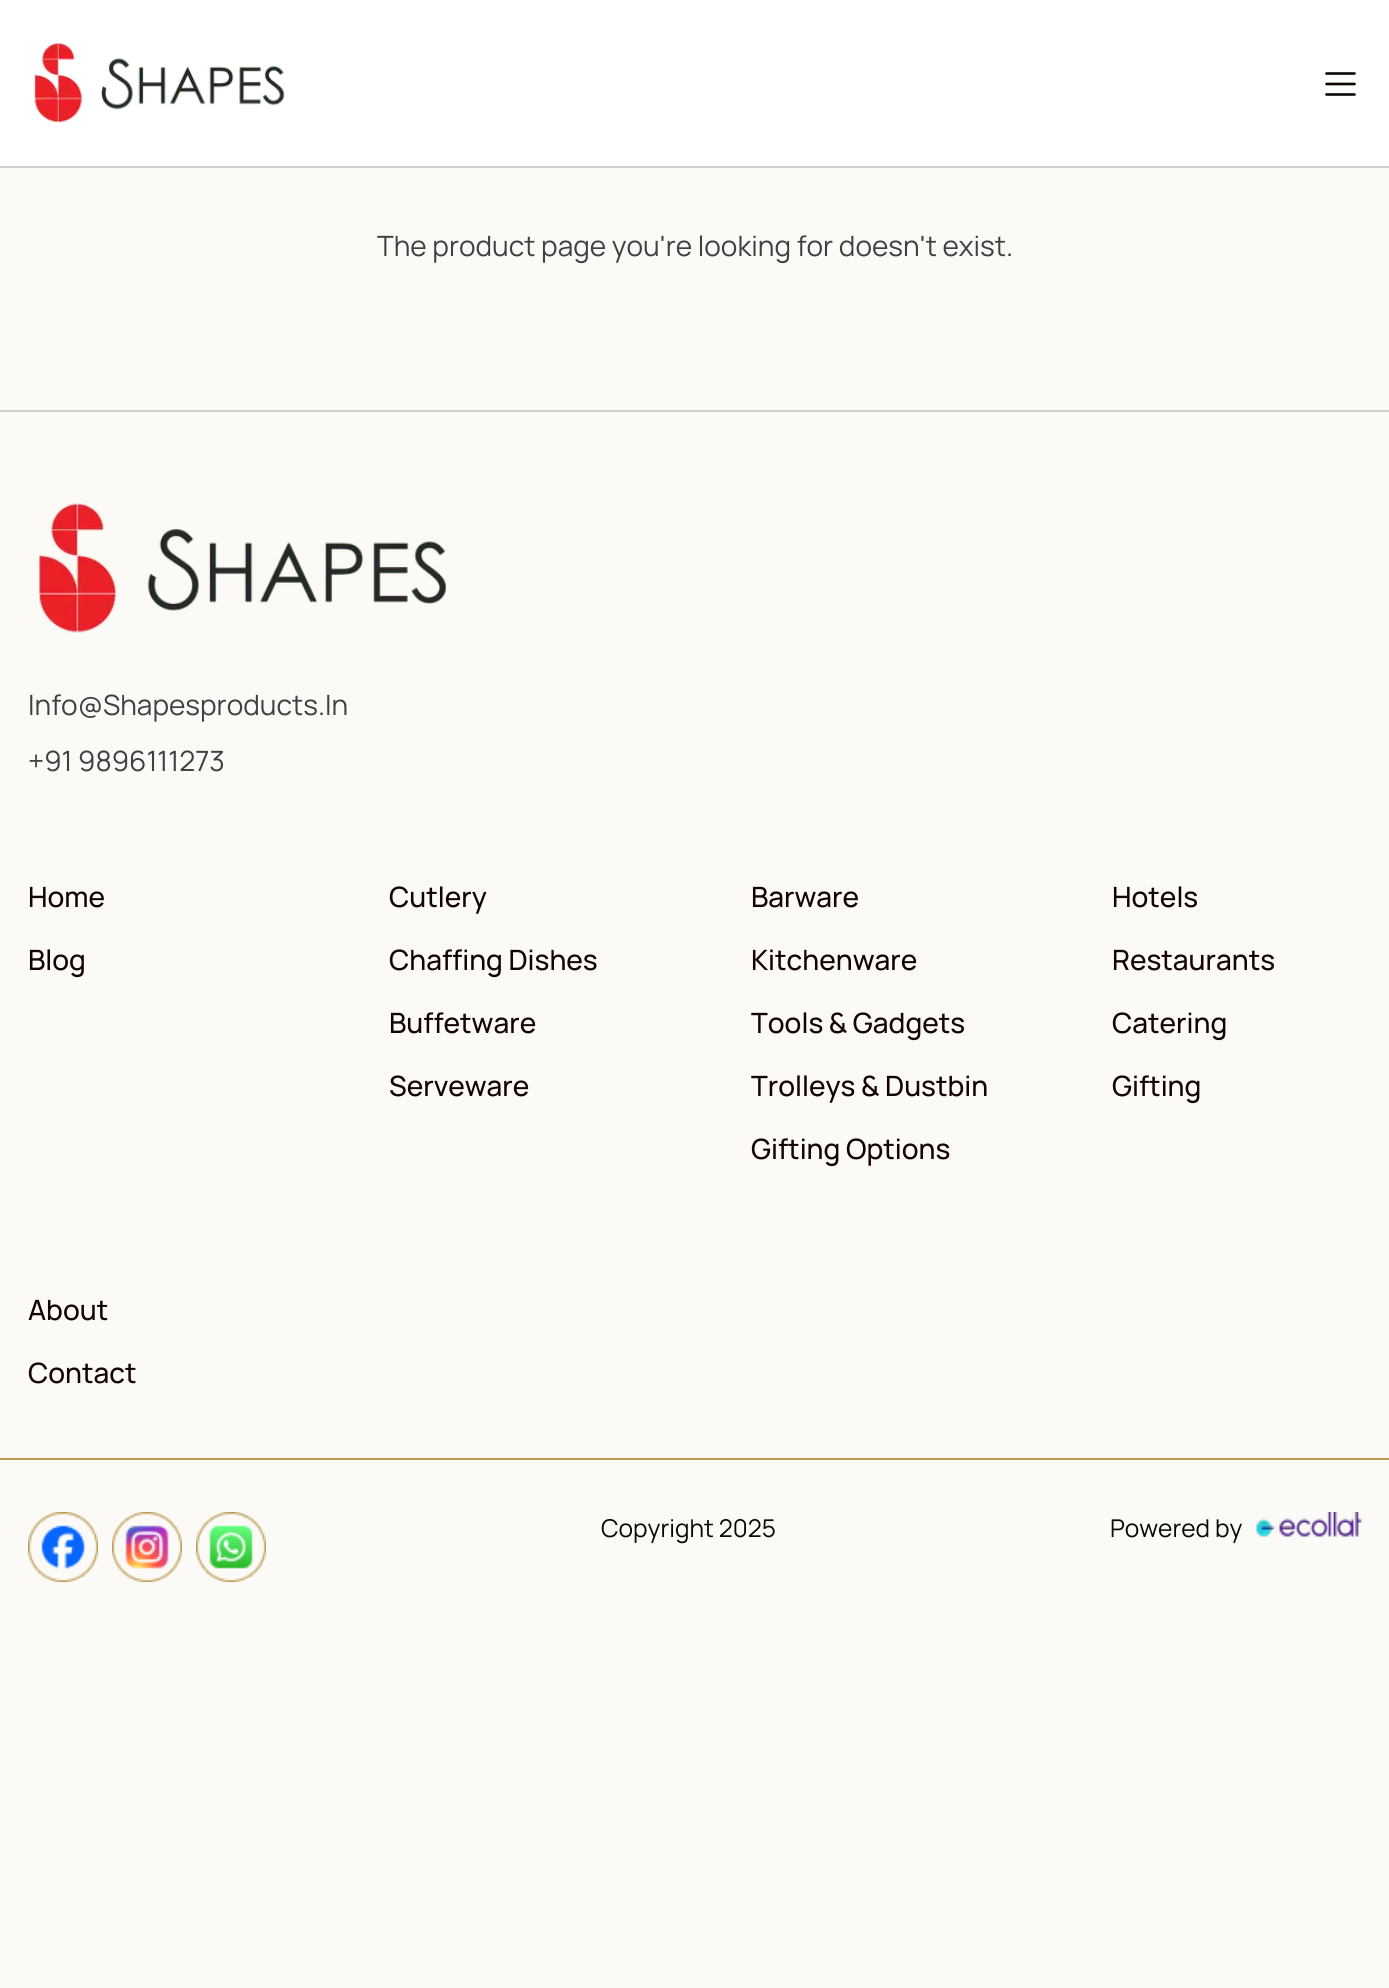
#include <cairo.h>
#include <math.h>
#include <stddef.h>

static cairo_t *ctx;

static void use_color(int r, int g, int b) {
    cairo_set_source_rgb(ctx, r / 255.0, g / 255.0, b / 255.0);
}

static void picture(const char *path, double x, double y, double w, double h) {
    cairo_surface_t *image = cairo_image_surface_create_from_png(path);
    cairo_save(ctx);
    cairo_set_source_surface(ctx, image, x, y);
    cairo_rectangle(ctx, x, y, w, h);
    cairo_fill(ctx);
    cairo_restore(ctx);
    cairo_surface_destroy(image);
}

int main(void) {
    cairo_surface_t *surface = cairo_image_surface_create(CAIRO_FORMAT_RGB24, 1389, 1988);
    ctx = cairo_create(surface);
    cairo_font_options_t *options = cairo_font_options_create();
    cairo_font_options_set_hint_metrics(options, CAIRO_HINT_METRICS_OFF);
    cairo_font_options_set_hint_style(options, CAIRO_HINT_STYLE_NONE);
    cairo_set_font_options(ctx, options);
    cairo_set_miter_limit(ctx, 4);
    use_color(252, 250, 247);
    cairo_paint(ctx);
    use_color(255, 255, 255);
    cairo_rectangle(ctx, 0, 0, 1389, 166);
    cairo_fill(ctx);
    use_color(209, 209, 209);
    cairo_rectangle(ctx, 0, 166, 1389, 2);
    cairo_fill(ctx);
    picture("img1.png", 34, 43, 251, 80);
    cairo_new_path(ctx);
    cairo_move_to(ctx, 1326.5, 73.5);
    cairo_line_to(ctx, 1354.5, 73.5);
    cairo_move_to(ctx, 1326.5, 84);
    cairo_line_to(ctx, 1354.5, 84);
    cairo_move_to(ctx, 1326.5, 94.5);
    cairo_line_to(ctx, 1354.5, 94.5);
    use_color(10, 7, 3);
    cairo_set_line_width(ctx, 2.6);
    cairo_set_line_cap(ctx, CAIRO_LINE_CAP_ROUND);
    cairo_set_line_join(ctx, CAIRO_LINE_JOIN_ROUND);
    cairo_stroke(ctx);
    cairo_select_font_face(ctx, "Manrope", CAIRO_FONT_SLANT_NORMAL, CAIRO_FONT_WEIGHT_NORMAL);
    cairo_set_font_size(ctx, 28);
    use_color(64, 64, 64);
    cairo_move_to(ctx, 377, 256);
    cairo_show_text(ctx, "The product page you're looking for doesn't exist.");
    use_color(209, 209, 209);
    cairo_rectangle(ctx, 0, 410, 1389, 2);
    cairo_fill(ctx);
    use_color(186, 155, 83);
    cairo_rectangle(ctx, 0, 1458, 1389, 2);
    cairo_fill(ctx);
    picture("img2.png", 38, 503, 409, 130);
    use_color(64, 64, 64);
    cairo_move_to(ctx, 28, 715);
    cairo_show_text(ctx, "Info@Shapesproducts.In");
    cairo_move_to(ctx, 28, 771);
    cairo_show_text(ctx, "+91 9896111273");
    cairo_select_font_face(ctx, "Manrope Medium", CAIRO_FONT_SLANT_NORMAL, CAIRO_FONT_WEIGHT_NORMAL);
    use_color(20, 3, 3);
    cairo_move_to(ctx, 28, 907);
    cairo_show_text(ctx, "Home");
    cairo_move_to(ctx, 28, 970);
    cairo_show_text(ctx, "Blog");
    cairo_move_to(ctx, 389, 907);
    cairo_show_text(ctx, "Cutlery");
    cairo_move_to(ctx, 389, 970);
    cairo_show_text(ctx, "Chaffing Dishes");
    cairo_move_to(ctx, 389, 1033);
    cairo_show_text(ctx, "Buffetware");
    cairo_move_to(ctx, 389, 1096);
    cairo_show_text(ctx, "Serveware");
    cairo_move_to(ctx, 751, 907);
    cairo_show_text(ctx, "Barware");
    cairo_move_to(ctx, 751, 970);
    cairo_show_text(ctx, "Kitchenware");
    cairo_move_to(ctx, 751, 1033);
    cairo_show_text(ctx, "Tools & Gadgets");
    cairo_move_to(ctx, 751, 1096);
    cairo_show_text(ctx, "Trolleys & Dustbin");
    cairo_move_to(ctx, 751, 1159);
    cairo_show_text(ctx, "Gifting Options");
    cairo_move_to(ctx, 1112, 907);
    cairo_show_text(ctx, "Hotels");
    cairo_move_to(ctx, 1112, 970);
    cairo_show_text(ctx, "Restaurants");
    cairo_move_to(ctx, 1112, 1033);
    cairo_show_text(ctx, "Catering");
    cairo_move_to(ctx, 1112, 1096);
    cairo_show_text(ctx, "Gifting");
    cairo_move_to(ctx, 28, 1320);
    cairo_show_text(ctx, "About");
    cairo_move_to(ctx, 28, 1383);
    cairo_show_text(ctx, "Contact");
    picture("img3.png", 28, 1512, 70, 70);
    picture("img4.png", 112, 1512, 70, 70);
    picture("img5.png", 196, 1512, 70, 70);
    cairo_select_font_face(ctx, "Manrope", CAIRO_FONT_SLANT_NORMAL, CAIRO_FONT_WEIGHT_NORMAL);
    cairo_set_font_size(ctx, 24.5);
    use_color(10, 7, 3);
    cairo_move_to(ctx, 601, 1537);
    cairo_show_text(ctx, "Copyright 2025");
    cairo_move_to(ctx, 1110, 1537);
    cairo_show_text(ctx, "Powered by");
    picture("img6.png", 1256, 1512, 106, 25);
    cairo_surface_write_to_png(surface, "result.png");
    cairo_font_options_destroy(options);
    cairo_destroy(ctx);
    cairo_surface_destroy(surface);
    return 0;
}
